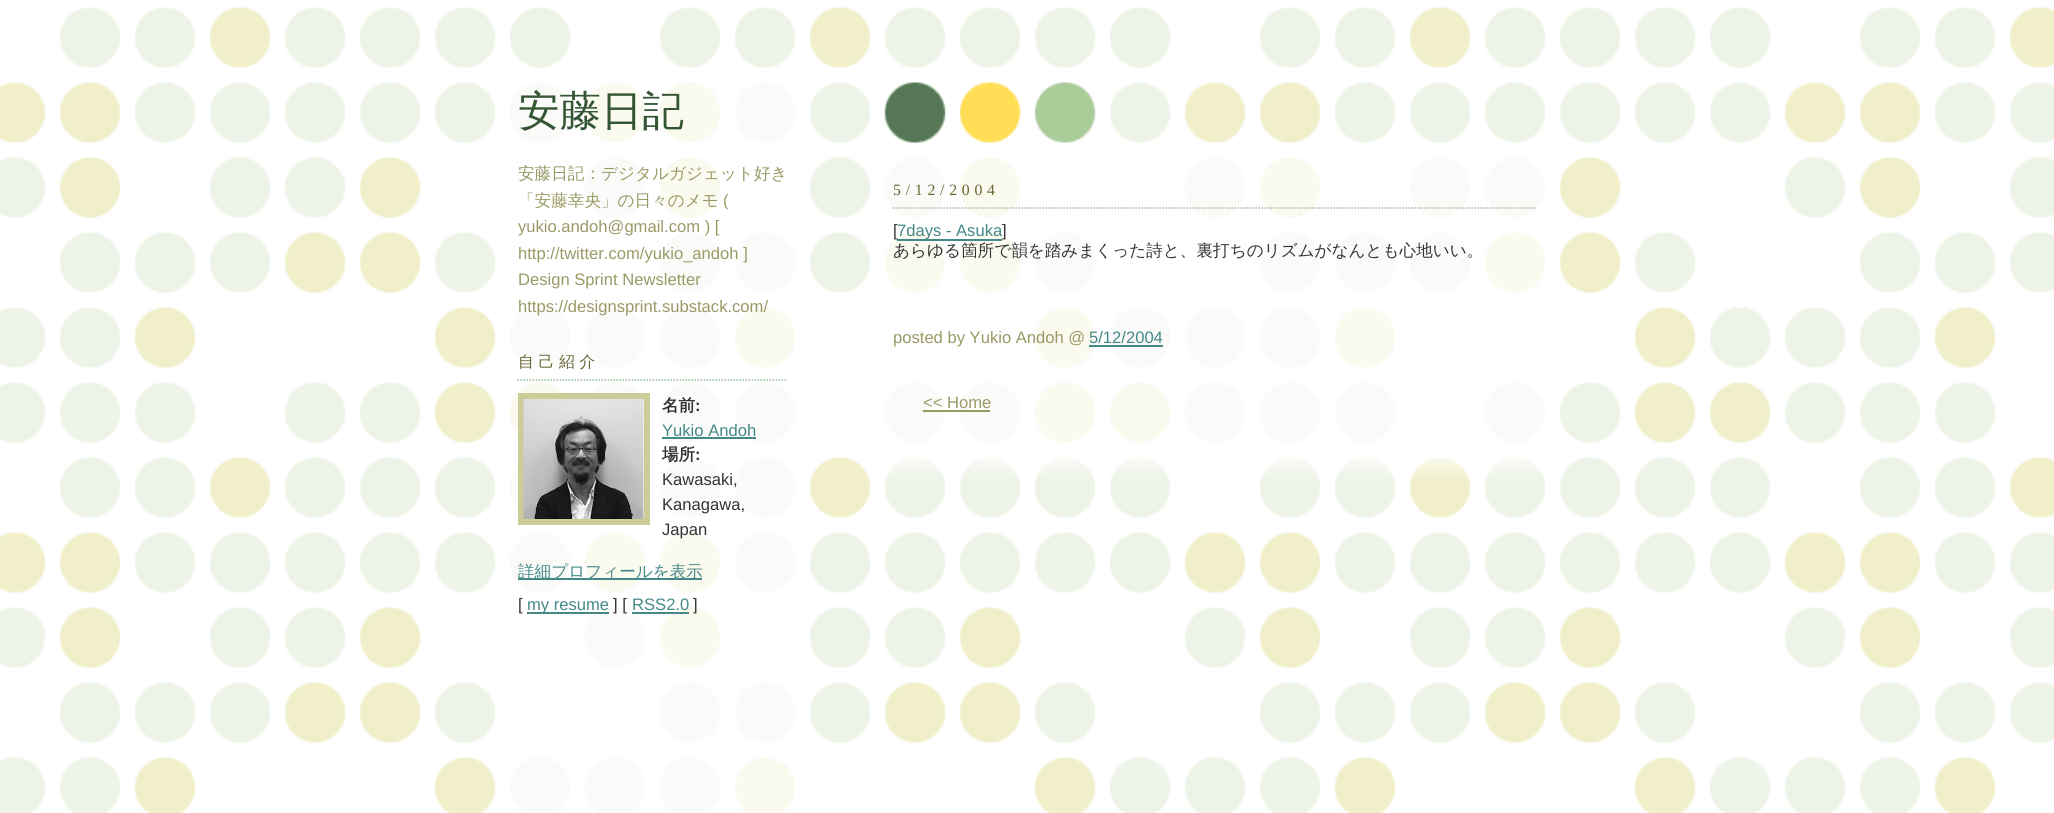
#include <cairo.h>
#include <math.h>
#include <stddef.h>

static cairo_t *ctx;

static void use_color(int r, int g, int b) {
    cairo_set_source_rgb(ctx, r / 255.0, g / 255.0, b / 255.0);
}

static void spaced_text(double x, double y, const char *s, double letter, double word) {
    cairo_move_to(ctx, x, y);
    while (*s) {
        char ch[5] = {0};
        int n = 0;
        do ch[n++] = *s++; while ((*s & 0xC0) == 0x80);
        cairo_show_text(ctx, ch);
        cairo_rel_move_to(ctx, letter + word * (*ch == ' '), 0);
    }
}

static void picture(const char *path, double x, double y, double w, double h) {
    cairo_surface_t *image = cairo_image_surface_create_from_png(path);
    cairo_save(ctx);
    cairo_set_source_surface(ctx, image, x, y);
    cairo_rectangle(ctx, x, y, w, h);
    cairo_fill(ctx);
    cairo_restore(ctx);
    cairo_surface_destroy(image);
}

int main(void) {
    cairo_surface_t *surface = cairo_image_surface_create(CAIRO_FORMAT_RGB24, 2054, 813);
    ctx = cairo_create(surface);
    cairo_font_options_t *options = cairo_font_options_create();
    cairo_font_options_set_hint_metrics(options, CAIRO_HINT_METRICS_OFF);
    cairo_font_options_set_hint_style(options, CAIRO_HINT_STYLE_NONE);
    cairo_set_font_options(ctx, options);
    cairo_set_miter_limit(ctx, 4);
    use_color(255, 255, 255);
    cairo_paint(ctx);
    picture("img1.png", 0, 7, 2054, 806);
    picture("img2.png", 884, 82, 212, 62);
    picture("img3.png", 509, 82, 287, 731);
    cairo_select_font_face(ctx, "WenQuanYi Zen Hei Medium", CAIRO_FONT_SLANT_NORMAL, CAIRO_FONT_WEIGHT_NORMAL);
    cairo_set_font_size(ctx, 41.5);
    use_color(51, 85, 51);
    cairo_move_to(ctx, 518, 125);
    cairo_show_text(ctx, "安藤日記");
    cairo_set_font_size(ctx, 16.6);
    use_color(153, 153, 102);
    cairo_move_to(ctx, 518, 179);
    cairo_show_text(ctx, "安藤日記：デジタルガジェット好き");
    cairo_move_to(ctx, 518, 206);
    cairo_show_text(ctx, "「安藤幸央」の日々のメモ");
    cairo_select_font_face(ctx, "Liberation Sans", CAIRO_FONT_SLANT_NORMAL, CAIRO_FONT_WEIGHT_NORMAL);
    cairo_move_to(ctx, 723, 206);
    cairo_show_text(ctx, "(");
    cairo_move_to(ctx, 518, 232);
    cairo_show_text(ctx, "yukio.andoh@gmail.com ) [");
    cairo_move_to(ctx, 518, 259);
    cairo_show_text(ctx, "http://twitter.com/yukio_andoh ]");
    cairo_move_to(ctx, 518, 285);
    cairo_show_text(ctx, "Design Sprint Newsletter");
    cairo_move_to(ctx, 518, 312);
    cairo_show_text(ctx, "https://designsprint.substack.com/");
    cairo_new_path(ctx);
    cairo_move_to(ctx, 517.5, 380);
    cairo_line_to(ctx, 787.5, 380);
    use_color(153, 187, 153);
    cairo_set_line_width(ctx, 1.5);
    cairo_set_dash(ctx, (double[]){1.5, 1.5}, 2, 0);
    cairo_stroke(ctx);
    cairo_select_font_face(ctx, "WenQuanYi Zen Hei Medium", CAIRO_FONT_SLANT_NORMAL, CAIRO_FONT_WEIGHT_NORMAL);
    cairo_set_font_size(ctx, 15.75);
    use_color(102, 102, 51);
    spaced_text(518, 367, "自己紹介", 4.75, 0);
    cairo_rectangle(ctx, 521, 396, 126, 126);
    use_color(204, 204, 153);
    cairo_set_line_width(ctx, 6);
    cairo_set_dash(ctx, NULL, 0, 0);
    cairo_stroke(ctx);
    picture("img4.png", 523, 399, 121, 120);
    cairo_select_font_face(ctx, "WenQuanYi Zen Hei", CAIRO_FONT_SLANT_NORMAL, CAIRO_FONT_WEIGHT_BOLD);
    cairo_set_font_size(ctx, 16.6);
    use_color(51, 51, 51);
    cairo_move_to(ctx, 662, 411);
    cairo_show_text(ctx, "名前");
    cairo_select_font_face(ctx, "Liberation Sans", CAIRO_FONT_SLANT_NORMAL, CAIRO_FONT_WEIGHT_BOLD);
    cairo_move_to(ctx, 695, 411);
    cairo_show_text(ctx, ":");
    cairo_select_font_face(ctx, "Liberation Sans", CAIRO_FONT_SLANT_NORMAL, CAIRO_FONT_WEIGHT_NORMAL);
    use_color(68, 136, 136);
    cairo_move_to(ctx, 662, 436);
    cairo_show_text(ctx, "Yukio Andoh");
    cairo_rectangle(ctx, 662, 437, 94, 2);
    cairo_fill(ctx);
    cairo_select_font_face(ctx, "WenQuanYi Zen Hei", CAIRO_FONT_SLANT_NORMAL, CAIRO_FONT_WEIGHT_BOLD);
    use_color(51, 51, 51);
    cairo_move_to(ctx, 662, 460);
    cairo_show_text(ctx, "場所");
    cairo_select_font_face(ctx, "Liberation Sans", CAIRO_FONT_SLANT_NORMAL, CAIRO_FONT_WEIGHT_BOLD);
    cairo_move_to(ctx, 695, 460);
    cairo_show_text(ctx, ":");
    cairo_select_font_face(ctx, "Liberation Sans", CAIRO_FONT_SLANT_NORMAL, CAIRO_FONT_WEIGHT_NORMAL);
    cairo_move_to(ctx, 662, 485);
    cairo_show_text(ctx, "Kawasaki,");
    cairo_move_to(ctx, 662, 510);
    cairo_show_text(ctx, "Kanagawa,");
    cairo_move_to(ctx, 662, 535);
    cairo_show_text(ctx, "Japan");
    use_color(68, 136, 136);
    cairo_rectangle(ctx, 518, 578, 184, 2);
    cairo_fill(ctx);
    cairo_select_font_face(ctx, "WenQuanYi Zen Hei Medium", CAIRO_FONT_SLANT_NORMAL, CAIRO_FONT_WEIGHT_NORMAL);
    cairo_move_to(ctx, 518, 577);
    cairo_show_text(ctx, "詳細プロフィールを表示");
    cairo_select_font_face(ctx, "Liberation Sans", CAIRO_FONT_SLANT_NORMAL, CAIRO_FONT_WEIGHT_NORMAL);
    use_color(51, 51, 51);
    cairo_move_to(ctx, 518, 610);
    cairo_show_text(ctx, "[");
    use_color(68, 136, 136);
    cairo_rectangle(ctx, 527, 612, 82, 2);
    cairo_fill(ctx);
    cairo_move_to(ctx, 527, 610);
    cairo_show_text(ctx, "my resume");
    use_color(51, 51, 51);
    cairo_move_to(ctx, 613, 610);
    cairo_show_text(ctx, "] [");
    use_color(68, 136, 136);
    cairo_move_to(ctx, 632, 610);
    cairo_show_text(ctx, "RSS2.0");
    cairo_rectangle(ctx, 632, 612, 57, 2);
    cairo_fill(ctx);
    use_color(51, 51, 51);
    cairo_move_to(ctx, 693, 610);
    cairo_show_text(ctx, "]");
    picture("img5.png", 889, 457, 652, 22);
    picture("img6.png", 884, 157, 662, 286);
    cairo_new_path(ctx);
    cairo_move_to(ctx, 892.5, 208);
    cairo_line_to(ctx, 1537.5, 208);
    use_color(153, 187, 153);
    cairo_set_line_width(ctx, 1.5);
    cairo_set_dash(ctx, (double[]){1.5, 1.5}, 2, 0);
    cairo_stroke(ctx);
    cairo_select_font_face(ctx, "Liberation Serif", CAIRO_FONT_SLANT_NORMAL, CAIRO_FONT_WEIGHT_NORMAL);
    cairo_set_font_size(ctx, 15.75);
    use_color(102, 102, 51);
    spaced_text(893, 195, "5/12/2004", 4.75, 0);
    cairo_select_font_face(ctx, "Liberation Sans", CAIRO_FONT_SLANT_NORMAL, CAIRO_FONT_WEIGHT_NORMAL);
    cairo_set_font_size(ctx, 16.6);
    use_color(51, 51, 51);
    cairo_move_to(ctx, 893, 236);
    cairo_show_text(ctx, "[");
    use_color(68, 136, 136);
    cairo_rectangle(ctx, 897, 239, 105, 2);
    cairo_fill(ctx);
    cairo_move_to(ctx, 897, 236);
    cairo_show_text(ctx, "7days - Asuka");
    use_color(51, 51, 51);
    cairo_move_to(ctx, 1002, 236);
    cairo_show_text(ctx, "]");
    cairo_select_font_face(ctx, "WenQuanYi Zen Hei Medium", CAIRO_FONT_SLANT_NORMAL, CAIRO_FONT_WEIGHT_NORMAL);
    cairo_move_to(ctx, 893, 256);
    cairo_show_text(ctx, "あらゆる箇所で韻を踏みまくった詩と、裏打ちのリズムがなんとも心地いい。");
    cairo_select_font_face(ctx, "Liberation Sans", CAIRO_FONT_SLANT_NORMAL, CAIRO_FONT_WEIGHT_NORMAL);
    use_color(153, 153, 102);
    cairo_move_to(ctx, 893, 343);
    cairo_show_text(ctx, "posted by Yukio Andoh @");
    use_color(68, 136, 136);
    cairo_move_to(ctx, 1089, 343);
    cairo_show_text(ctx, "5/12/2004");
    cairo_rectangle(ctx, 1089, 345, 74, 2);
    cairo_fill(ctx);
    use_color(153, 153, 102);
    cairo_move_to(ctx, 923, 408);
    cairo_show_text(ctx, "<< Home");
    cairo_rectangle(ctx, 923, 410, 67, 2);
    cairo_fill(ctx);
    cairo_surface_write_to_png(surface, "result.png");
    cairo_font_options_destroy(options);
    cairo_destroy(ctx);
    cairo_surface_destroy(surface);
    return 0;
}
